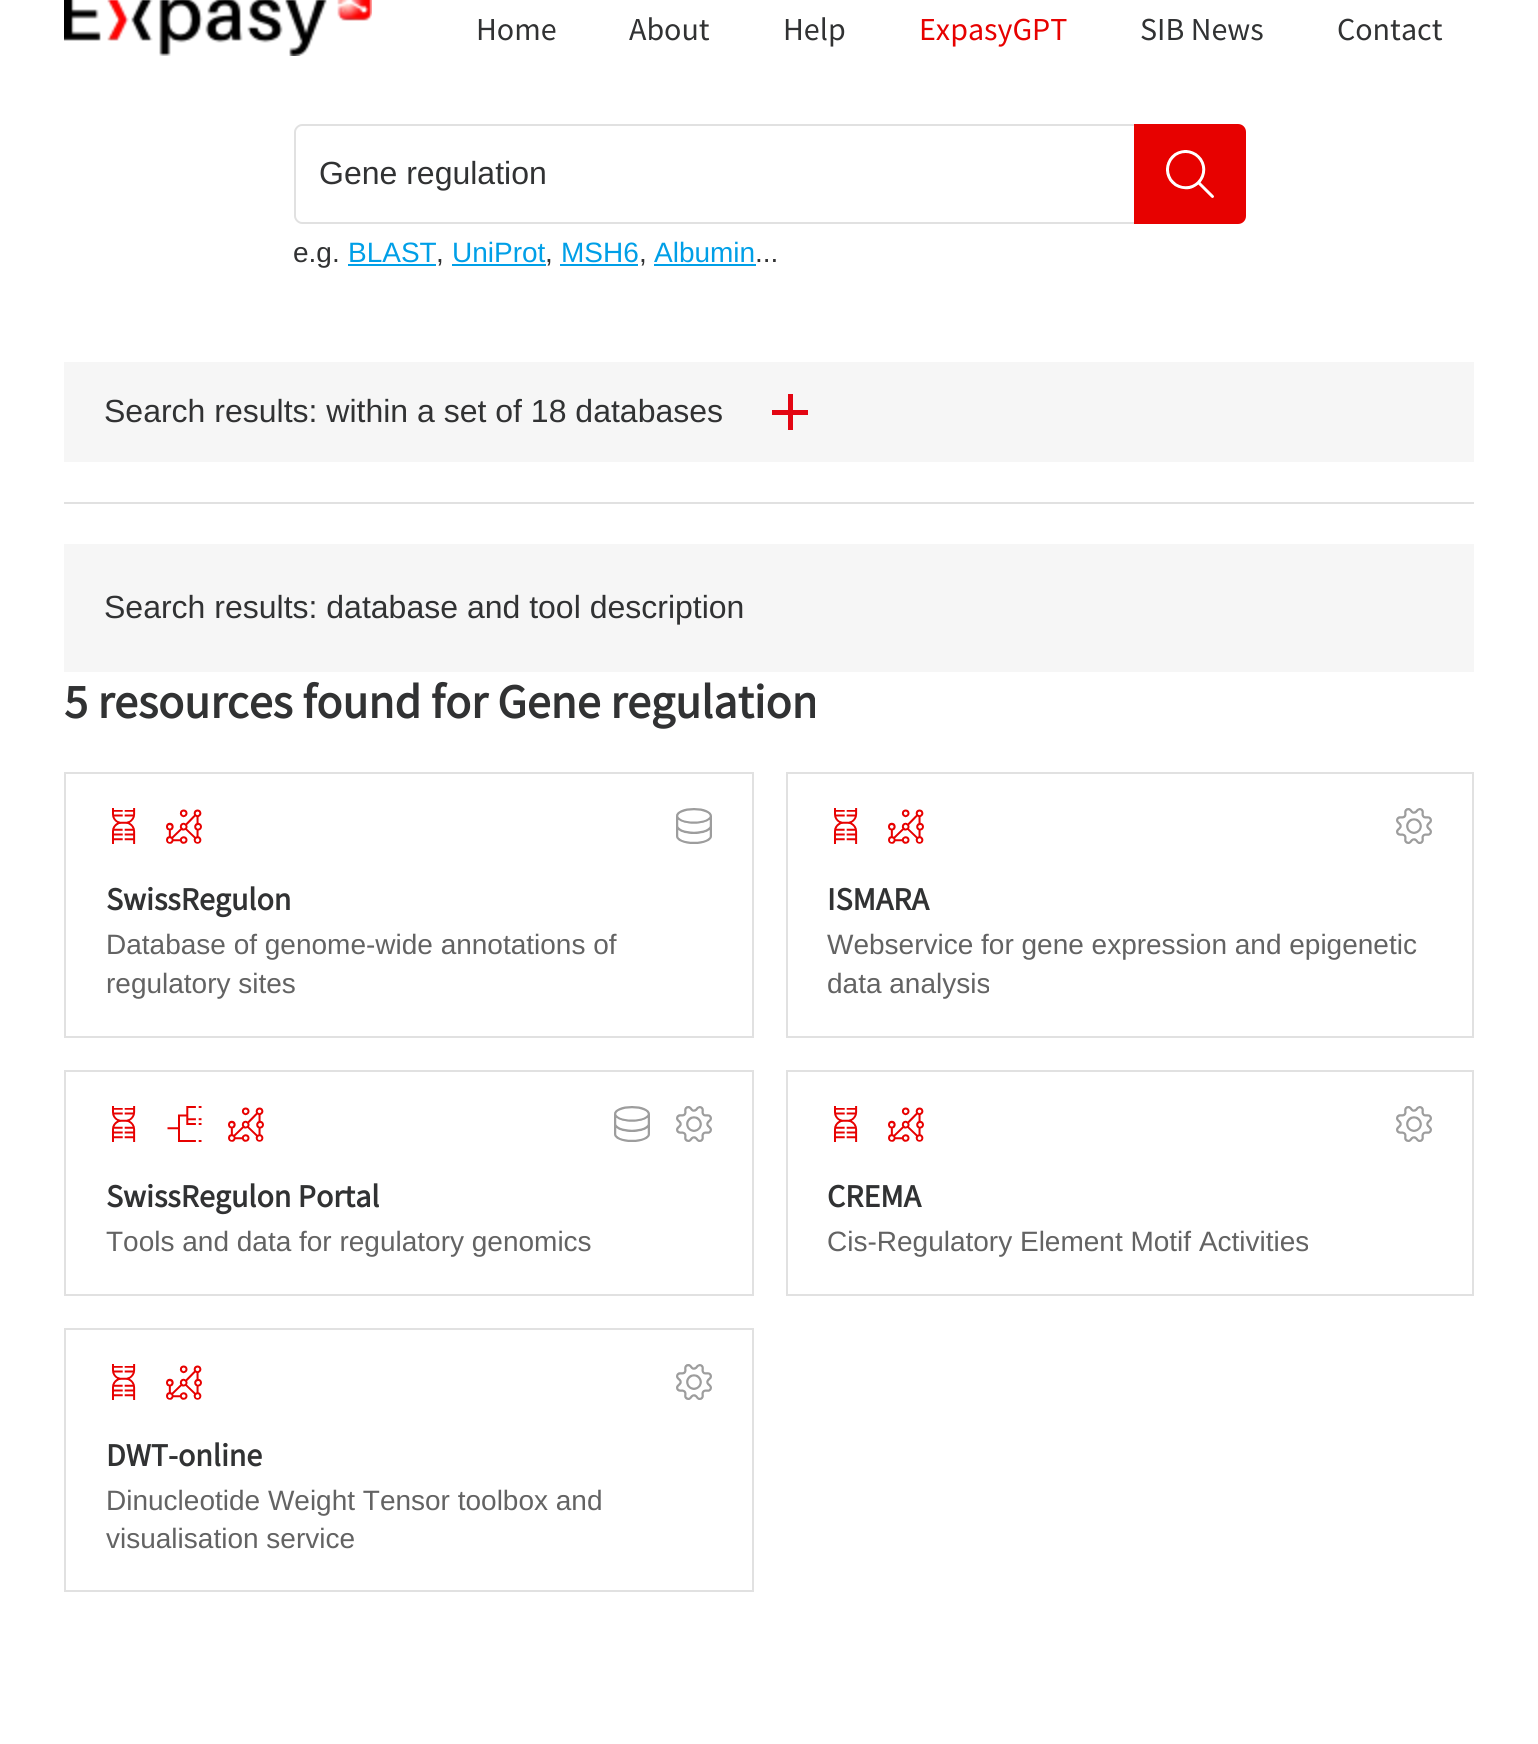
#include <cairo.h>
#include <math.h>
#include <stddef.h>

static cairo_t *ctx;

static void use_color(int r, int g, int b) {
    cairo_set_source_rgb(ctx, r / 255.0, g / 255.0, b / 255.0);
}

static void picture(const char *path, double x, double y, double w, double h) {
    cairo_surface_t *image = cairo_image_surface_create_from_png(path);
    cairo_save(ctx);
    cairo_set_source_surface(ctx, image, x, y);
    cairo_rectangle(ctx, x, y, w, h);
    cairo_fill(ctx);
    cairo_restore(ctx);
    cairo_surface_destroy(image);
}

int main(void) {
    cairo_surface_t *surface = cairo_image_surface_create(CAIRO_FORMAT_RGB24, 1538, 1744);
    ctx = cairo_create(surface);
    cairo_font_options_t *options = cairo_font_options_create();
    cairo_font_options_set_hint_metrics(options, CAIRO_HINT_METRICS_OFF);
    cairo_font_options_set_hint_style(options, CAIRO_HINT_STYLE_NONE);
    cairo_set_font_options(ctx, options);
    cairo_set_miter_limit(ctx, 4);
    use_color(255, 255, 255);
    cairo_paint(ctx);
    picture("img1.png", 64, 0, 308, 56);
    cairo_select_font_face(ctx, "Source Sans Pro", CAIRO_FONT_SLANT_NORMAL, CAIRO_FONT_WEIGHT_NORMAL);
    cairo_set_font_size(ctx, 32);
    use_color(49, 50, 51);
    cairo_move_to(ctx, 476, 40);
    cairo_show_text(ctx, "Home");
    cairo_move_to(ctx, 629, 40);
    cairo_show_text(ctx, "About");
    cairo_move_to(ctx, 783, 40);
    cairo_show_text(ctx, "Help");
    use_color(231, 1, 0);
    cairo_move_to(ctx, 919, 40);
    cairo_show_text(ctx, "ExpasyGPT");
    use_color(49, 50, 51);
    cairo_move_to(ctx, 1140, 40);
    cairo_show_text(ctx, "SIB News");
    cairo_move_to(ctx, 1337, 40);
    cairo_show_text(ctx, "Contact");
    use_color(225, 225, 225);
    cairo_set_fill_rule(ctx, CAIRO_FILL_RULE_EVEN_ODD);
    cairo_new_path(ctx);
    cairo_move_to(ctx, 302, 124);
    cairo_line_to(ctx, 1134, 124);
    cairo_line_to(ctx, 1134, 224);
    cairo_line_to(ctx, 302, 224);
    cairo_curve_to(ctx, 298, 224, 294, 220, 294, 216);
    cairo_line_to(ctx, 294, 132);
    cairo_curve_to(ctx, 294, 128, 298, 124, 302, 124);
    cairo_close_path(ctx);
    cairo_move_to(ctx, 302, 126);
    cairo_line_to(ctx, 1134, 126);
    cairo_line_to(ctx, 1134, 222);
    cairo_line_to(ctx, 302, 222);
    cairo_curve_to(ctx, 299, 222, 296, 219, 296, 216);
    cairo_line_to(ctx, 296, 132);
    cairo_curve_to(ctx, 296, 129, 299, 126, 302, 126);
    cairo_close_path(ctx);
    cairo_fill(ctx);
    cairo_select_font_face(ctx, "Liberation Sans", CAIRO_FONT_SLANT_NORMAL, CAIRO_FONT_WEIGHT_NORMAL);
    use_color(49, 50, 51);
    cairo_move_to(ctx, 319, 184);
    cairo_show_text(ctx, "Gene regulation");
    use_color(231, 1, 0);
    cairo_new_path(ctx);
    cairo_move_to(ctx, 1134, 124);
    cairo_line_to(ctx, 1238, 124);
    cairo_curve_to(ctx, 1242.5, 124, 1246, 127.5, 1246, 132);
    cairo_line_to(ctx, 1246, 216);
    cairo_curve_to(ctx, 1246, 220.5, 1242.5, 224, 1238, 224);
    cairo_line_to(ctx, 1134, 224);
    cairo_close_path(ctx);
    cairo_fill(ctx);
    picture("img2.png", 1166, 150, 48, 48);
    cairo_set_font_size(ctx, 28);
    use_color(49, 50, 51);
    cairo_move_to(ctx, 293, 262);
    cairo_show_text(ctx, "e.g.");
    use_color(0, 159, 231);
    cairo_move_to(ctx, 348, 262);
    cairo_show_text(ctx, "BLAST");
    cairo_rectangle(ctx, 348, 264, 88, 2);
    cairo_fill(ctx);
    use_color(49, 50, 51);
    cairo_move_to(ctx, 436, 262);
    cairo_show_text(ctx, ",");
    use_color(0, 159, 231);
    cairo_move_to(ctx, 452, 262);
    cairo_show_text(ctx, "UniProt");
    cairo_rectangle(ctx, 452, 264, 94, 2);
    cairo_fill(ctx);
    use_color(49, 50, 51);
    cairo_move_to(ctx, 545, 262);
    cairo_show_text(ctx, ",");
    use_color(0, 159, 231);
    cairo_move_to(ctx, 561, 262);
    cairo_show_text(ctx, "MSH6");
    cairo_rectangle(ctx, 560, 264, 78, 2);
    cairo_fill(ctx);
    use_color(49, 50, 51);
    cairo_move_to(ctx, 639, 262);
    cairo_show_text(ctx, ",");
    use_color(0, 159, 231);
    cairo_move_to(ctx, 654, 262);
    cairo_show_text(ctx, "Albumin");
    cairo_rectangle(ctx, 654, 264, 102, 2);
    cairo_fill(ctx);
    use_color(49, 50, 51);
    cairo_move_to(ctx, 755, 262);
    cairo_show_text(ctx, "...");
    use_color(246, 246, 246);
    cairo_rectangle(ctx, 64, 362, 1410, 100);
    cairo_fill(ctx);
    cairo_set_font_size(ctx, 32);
    use_color(49, 50, 51);
    cairo_move_to(ctx, 104, 422);
    cairo_show_text(ctx, "Search results: within a set of 18 databases");
    use_color(227, 6, 19);
    cairo_rectangle(ctx, 788, 394, 5, 36);
    cairo_fill(ctx);
    cairo_rectangle(ctx, 772, 410, 36, 5);
    cairo_fill(ctx);
    use_color(225, 225, 225);
    cairo_rectangle(ctx, 64, 502, 1410, 2);
    cairo_fill(ctx);
    use_color(246, 246, 246);
    cairo_rectangle(ctx, 64, 544, 1410, 128);
    cairo_fill(ctx);
    use_color(49, 50, 51);
    cairo_move_to(ctx, 104, 618);
    cairo_show_text(ctx, "Search results: database and tool description");
    cairo_select_font_face(ctx, "Source Sans Pro", CAIRO_FONT_SLANT_NORMAL, CAIRO_FONT_WEIGHT_BOLD);
    cairo_set_font_size(ctx, 48);
    cairo_move_to(ctx, 64, 718);
    cairo_show_text(ctx, "5 resources found for Gene regulation");
    cairo_rectangle(ctx, 65, 773, 688, 264);
    use_color(225, 225, 225);
    cairo_stroke(ctx);
    picture("img3.png", 112, 808, 24, 36);
    picture("img4.png", 166, 809, 36, 35);
    picture("img5.png", 676, 808, 36, 36);
    cairo_set_font_size(ctx, 32);
    use_color(49, 50, 51);
    cairo_move_to(ctx, 106, 910);
    cairo_show_text(ctx, "SwissRegulon");
    cairo_select_font_face(ctx, "Liberation Sans", CAIRO_FONT_SLANT_NORMAL, CAIRO_FONT_WEIGHT_NORMAL);
    cairo_set_font_size(ctx, 28);
    use_color(99, 99, 99);
    cairo_move_to(ctx, 106, 954);
    cairo_show_text(ctx, "Database of genome-wide annotations of");
    cairo_move_to(ctx, 106, 993);
    cairo_show_text(ctx, "regulatory sites");
    cairo_rectangle(ctx, 787, 773, 686, 264);
    use_color(225, 225, 225);
    cairo_stroke(ctx);
    picture("img3.png", 834, 808, 24, 36);
    picture("img4.png", 888, 809, 36, 35);
    picture("img6.png", 1396, 808, 36, 36);
    cairo_select_font_face(ctx, "Source Sans Pro", CAIRO_FONT_SLANT_NORMAL, CAIRO_FONT_WEIGHT_BOLD);
    cairo_set_font_size(ctx, 32);
    use_color(49, 50, 51);
    cairo_move_to(ctx, 827, 910);
    cairo_show_text(ctx, "ISMARA");
    cairo_select_font_face(ctx, "Liberation Sans", CAIRO_FONT_SLANT_NORMAL, CAIRO_FONT_WEIGHT_NORMAL);
    cairo_set_font_size(ctx, 28);
    use_color(99, 99, 99);
    cairo_move_to(ctx, 827, 954);
    cairo_show_text(ctx, "Webservice for gene expression and epigenetic");
    cairo_move_to(ctx, 827, 993);
    cairo_show_text(ctx, "data analysis");
    cairo_rectangle(ctx, 65, 1071, 688, 224);
    use_color(225, 225, 225);
    cairo_stroke(ctx);
    picture("img3.png", 112, 1106, 24, 36);
    picture("img7.png", 167, 1106, 35, 36);
    picture("img4.png", 228, 1107, 36, 35);
    picture("img5.png", 614, 1106, 36, 36);
    picture("img6.png", 676, 1106, 36, 36);
    cairo_select_font_face(ctx, "Source Sans Pro", CAIRO_FONT_SLANT_NORMAL, CAIRO_FONT_WEIGHT_BOLD);
    cairo_set_font_size(ctx, 32);
    use_color(49, 50, 51);
    cairo_move_to(ctx, 106, 1207);
    cairo_show_text(ctx, "SwissRegulon Portal");
    cairo_select_font_face(ctx, "Liberation Sans", CAIRO_FONT_SLANT_NORMAL, CAIRO_FONT_WEIGHT_NORMAL);
    cairo_set_font_size(ctx, 28);
    use_color(99, 99, 99);
    cairo_move_to(ctx, 106, 1251);
    cairo_show_text(ctx, "Tools and data for regulatory genomics");
    cairo_rectangle(ctx, 787, 1071, 686, 224);
    use_color(225, 225, 225);
    cairo_stroke(ctx);
    picture("img3.png", 834, 1106, 24, 36);
    picture("img4.png", 888, 1107, 36, 35);
    picture("img6.png", 1396, 1106, 36, 36);
    cairo_select_font_face(ctx, "Source Sans Pro", CAIRO_FONT_SLANT_NORMAL, CAIRO_FONT_WEIGHT_BOLD);
    cairo_set_font_size(ctx, 32);
    use_color(49, 50, 51);
    cairo_move_to(ctx, 827, 1207);
    cairo_show_text(ctx, "CREMA");
    cairo_select_font_face(ctx, "Liberation Sans", CAIRO_FONT_SLANT_NORMAL, CAIRO_FONT_WEIGHT_NORMAL);
    cairo_set_font_size(ctx, 28);
    use_color(99, 99, 99);
    cairo_move_to(ctx, 827, 1251);
    cairo_show_text(ctx, "Cis-Regulatory Element Motif Activities");
    cairo_rectangle(ctx, 65, 1329, 688, 262);
    use_color(225, 225, 225);
    cairo_stroke(ctx);
    picture("img3.png", 112, 1364, 24, 36);
    picture("img4.png", 166, 1365, 36, 35);
    picture("img6.png", 676, 1364, 36, 36);
    cairo_select_font_face(ctx, "Source Sans Pro", CAIRO_FONT_SLANT_NORMAL, CAIRO_FONT_WEIGHT_BOLD);
    cairo_set_font_size(ctx, 32);
    use_color(49, 50, 51);
    cairo_move_to(ctx, 106, 1466);
    cairo_show_text(ctx, "DWT-online");
    cairo_select_font_face(ctx, "Liberation Sans", CAIRO_FONT_SLANT_NORMAL, CAIRO_FONT_WEIGHT_NORMAL);
    cairo_set_font_size(ctx, 28);
    use_color(99, 99, 99);
    cairo_move_to(ctx, 106, 1510);
    cairo_show_text(ctx, "Dinucleotide Weight Tensor toolbox and");
    cairo_move_to(ctx, 106, 1548);
    cairo_show_text(ctx, "visualisation service");
    cairo_surface_write_to_png(surface, "result.png");
    cairo_font_options_destroy(options);
    cairo_destroy(ctx);
    cairo_surface_destroy(surface);
    return 0;
}
